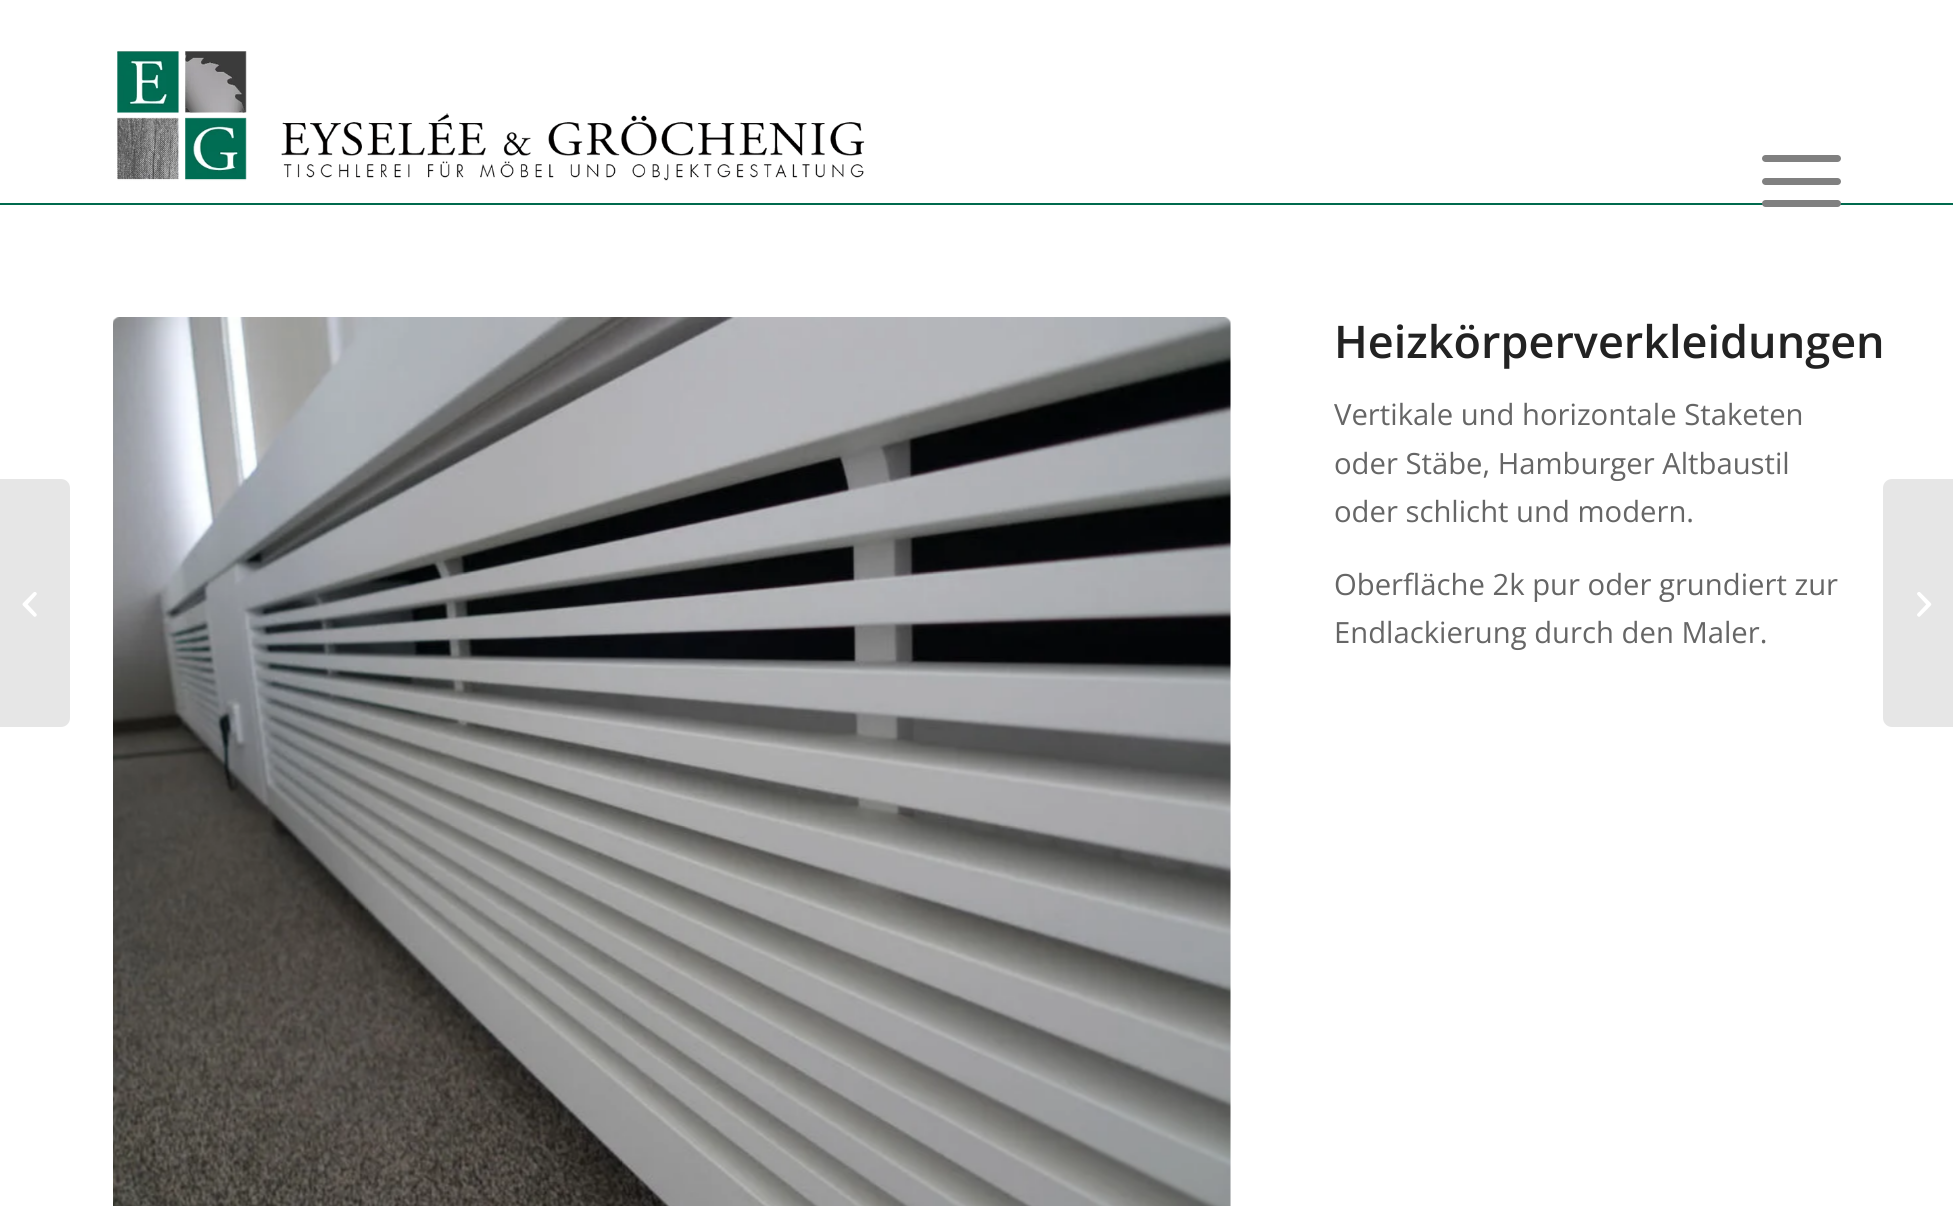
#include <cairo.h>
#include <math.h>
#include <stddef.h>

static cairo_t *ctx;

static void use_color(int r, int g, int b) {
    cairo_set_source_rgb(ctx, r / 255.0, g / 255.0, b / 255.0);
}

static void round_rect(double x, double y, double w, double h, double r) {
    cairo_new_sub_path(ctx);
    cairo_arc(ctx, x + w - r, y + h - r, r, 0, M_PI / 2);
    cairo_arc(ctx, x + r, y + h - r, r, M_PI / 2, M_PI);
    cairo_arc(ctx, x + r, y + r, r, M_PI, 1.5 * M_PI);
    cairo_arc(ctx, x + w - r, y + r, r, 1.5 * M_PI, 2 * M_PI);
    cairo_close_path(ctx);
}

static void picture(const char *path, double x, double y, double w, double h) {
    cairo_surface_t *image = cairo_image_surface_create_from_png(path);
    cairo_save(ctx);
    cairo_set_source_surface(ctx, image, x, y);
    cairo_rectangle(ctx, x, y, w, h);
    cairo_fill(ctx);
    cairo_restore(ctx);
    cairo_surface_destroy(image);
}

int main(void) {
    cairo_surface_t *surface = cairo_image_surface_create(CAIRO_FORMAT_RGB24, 1953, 1206);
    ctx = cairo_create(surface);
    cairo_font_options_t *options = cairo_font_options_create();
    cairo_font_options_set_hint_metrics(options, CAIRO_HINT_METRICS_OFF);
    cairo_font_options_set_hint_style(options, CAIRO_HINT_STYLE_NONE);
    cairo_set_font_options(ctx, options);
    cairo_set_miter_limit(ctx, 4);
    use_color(255, 255, 255);
    cairo_paint(ctx);
    use_color(0, 106, 78);
    cairo_rectangle(ctx, 0, 203, 1953, 2);
    cairo_fill(ctx);
    picture("img1.png", 117, 51, 748, 130);
    use_color(128, 128, 128);
    round_rect(1762, 178, 79, 7, 3.5);
    cairo_fill(ctx);
    round_rect(1762, 155, 79, 7, 3.5);
    cairo_fill(ctx);
    round_rect(1762, 200, 79, 7, 3.5);
    cairo_fill(ctx);
    use_color(230, 230, 230);
    cairo_new_path(ctx);
    cairo_move_to(ctx, 0, 479);
    cairo_line_to(ctx, 61, 479);
    cairo_curve_to(ctx, 66, 479, 70, 483, 70, 488);
    cairo_line_to(ctx, 70, 718);
    cairo_curve_to(ctx, 70, 723, 66, 727, 61, 727);
    cairo_line_to(ctx, 0, 727);
    cairo_close_path(ctx);
    cairo_fill(ctx);
    picture("img2.png", 22, 592, 15, 25);
    picture("img3.png", 113, 317, 1118, 889);
    cairo_select_font_face(ctx, "Open Sans SemiBold", CAIRO_FONT_SLANT_NORMAL, CAIRO_FONT_WEIGHT_NORMAL);
    cairo_set_font_size(ctx, 45);
    use_color(34, 34, 34);
    cairo_move_to(ctx, 1334, 358);
    cairo_show_text(ctx, "Heizkörperverkleidungen");
    cairo_select_font_face(ctx, "Open Sans", CAIRO_FONT_SLANT_NORMAL, CAIRO_FONT_WEIGHT_NORMAL);
    cairo_set_font_size(ctx, 29.25);
    use_color(102, 102, 102);
    cairo_move_to(ctx, 1334, 425);
    cairo_show_text(ctx, "Vertikale und horizontale Staketen");
    cairo_move_to(ctx, 1334, 474);
    cairo_show_text(ctx, "oder Stäbe, Hamburger Altbaustil");
    cairo_move_to(ctx, 1334, 522);
    cairo_show_text(ctx, "oder schlicht und modern.");
    cairo_move_to(ctx, 1334, 595);
    cairo_show_text(ctx, "Oberfläche 2k pur oder grundiert zur");
    cairo_move_to(ctx, 1334, 643);
    cairo_show_text(ctx, "Endlackierung durch den Maler.");
    use_color(230, 230, 230);
    cairo_new_path(ctx);
    cairo_move_to(ctx, 1892, 479);
    cairo_line_to(ctx, 1953, 479);
    cairo_line_to(ctx, 1953, 727);
    cairo_line_to(ctx, 1892, 727);
    cairo_curve_to(ctx, 1887, 727, 1883, 723, 1883, 718);
    cairo_line_to(ctx, 1883, 488);
    cairo_curve_to(ctx, 1883, 483, 1887, 479, 1892, 479);
    cairo_close_path(ctx);
    cairo_fill(ctx);
    picture("img4.png", 1917, 592, 15, 25);
    cairo_surface_write_to_png(surface, "result.png");
    cairo_font_options_destroy(options);
    cairo_destroy(ctx);
    cairo_surface_destroy(surface);
    return 0;
}
